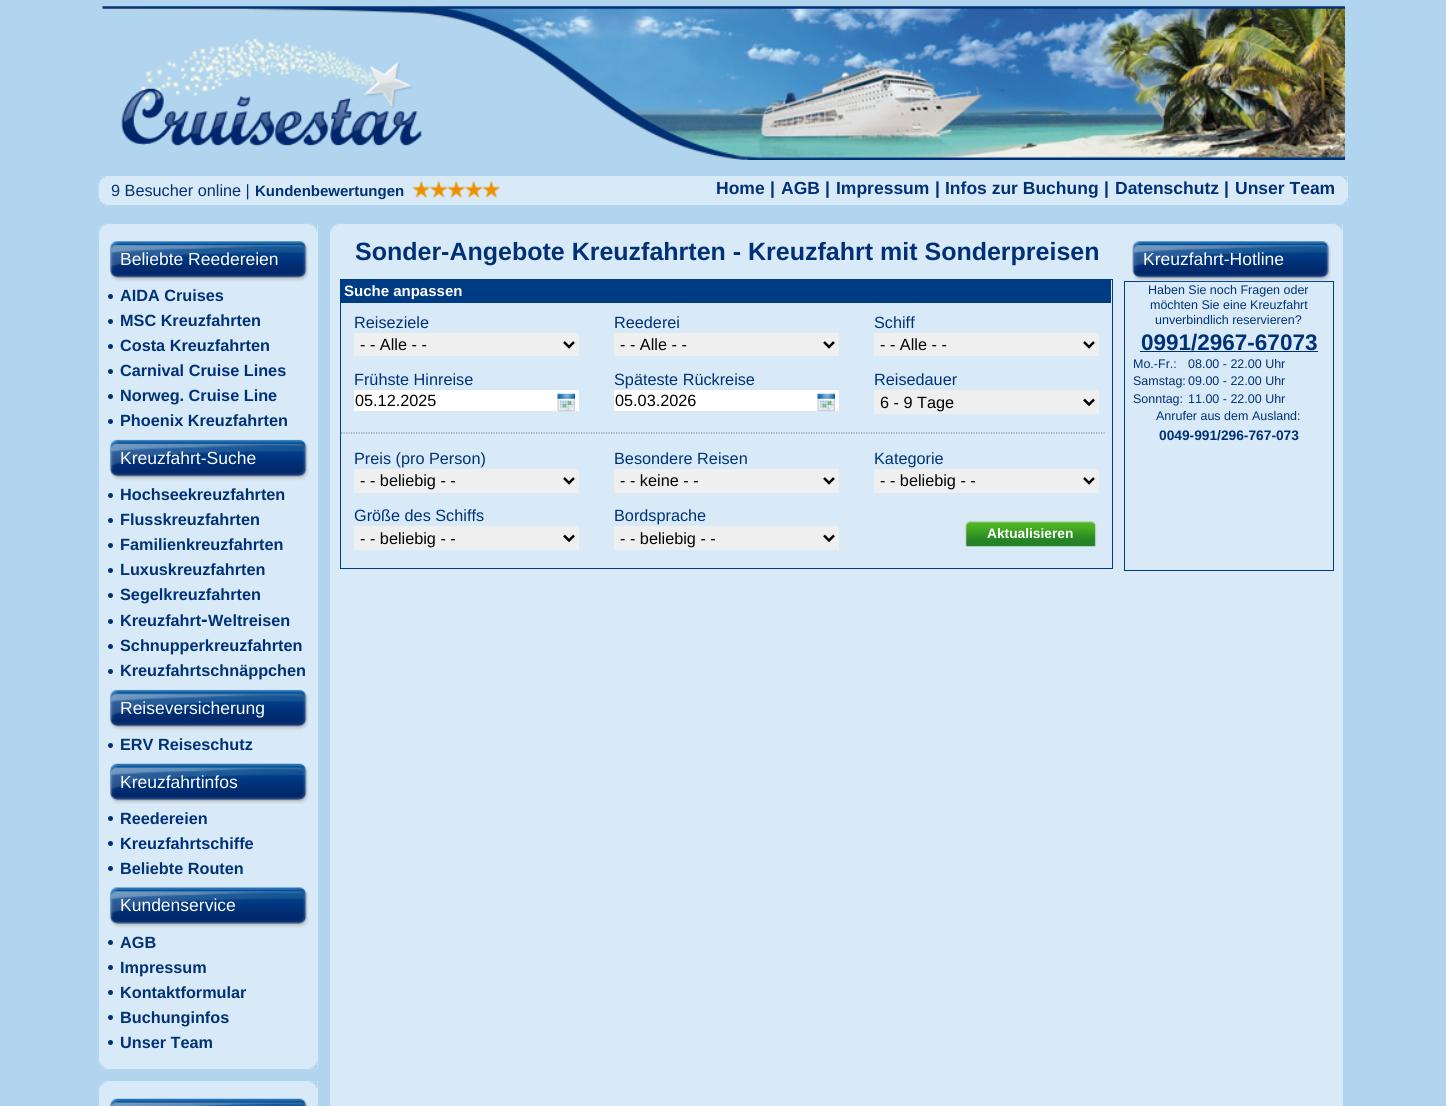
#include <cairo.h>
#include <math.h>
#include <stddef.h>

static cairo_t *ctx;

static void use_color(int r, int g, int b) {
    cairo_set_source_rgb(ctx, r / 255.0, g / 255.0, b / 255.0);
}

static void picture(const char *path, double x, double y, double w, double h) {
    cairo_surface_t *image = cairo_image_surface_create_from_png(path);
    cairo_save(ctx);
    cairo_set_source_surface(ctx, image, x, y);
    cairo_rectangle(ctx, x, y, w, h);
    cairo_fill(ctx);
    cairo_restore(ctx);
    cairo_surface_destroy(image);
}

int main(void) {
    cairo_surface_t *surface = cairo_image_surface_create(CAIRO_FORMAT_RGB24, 1446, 1106);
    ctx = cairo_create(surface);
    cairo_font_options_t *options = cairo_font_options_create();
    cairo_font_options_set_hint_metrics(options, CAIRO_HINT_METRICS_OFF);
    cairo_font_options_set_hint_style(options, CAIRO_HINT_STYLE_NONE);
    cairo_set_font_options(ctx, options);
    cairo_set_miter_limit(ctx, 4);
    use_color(177, 213, 239);
    cairo_paint(ctx);
    picture("img1.png", 102, 6, 1243, 154);
    use_color(216, 234, 248);
    cairo_rectangle(ctx, 99, 176, 1249, 29);
    cairo_fill(ctx);
    picture("img2.png", 98, 176, 8, 29);
    cairo_select_font_face(ctx, "Liberation Sans", CAIRO_FONT_SLANT_NORMAL, CAIRO_FONT_WEIGHT_NORMAL);
    cairo_set_font_size(ctx, 16.25);
    use_color(0, 49, 118);
    cairo_move_to(ctx, 111, 196);
    cairo_show_text(ctx, "9 Besucher online |");
    cairo_select_font_face(ctx, "Liberation Sans", CAIRO_FONT_SLANT_NORMAL, CAIRO_FONT_WEIGHT_BOLD);
    cairo_set_font_size(ctx, 15);
    cairo_move_to(ctx, 255, 196);
    cairo_show_text(ctx, "Kundenbewertungen");
    picture("img3.png", 412, 181, 18, 17);
    picture("img4.png", 430, 181, 18, 17);
    picture("img5.png", 447, 181, 18, 17);
    picture("img4.png", 465, 181, 18, 17);
    picture("img5.png", 482, 181, 18, 17);
    cairo_set_font_size(ctx, 17.5);
    cairo_move_to(ctx, 716, 194);
    cairo_show_text(ctx, "Home");
    cairo_move_to(ctx, 770, 194);
    cairo_show_text(ctx, "|");
    cairo_move_to(ctx, 781, 194);
    cairo_show_text(ctx, "AGB");
    cairo_move_to(ctx, 825, 194);
    cairo_show_text(ctx, "|");
    cairo_move_to(ctx, 836, 194);
    cairo_show_text(ctx, "Impressum");
    cairo_move_to(ctx, 935, 194);
    cairo_show_text(ctx, "|");
    cairo_move_to(ctx, 945, 194);
    cairo_show_text(ctx, "Infos zur Buchung");
    cairo_move_to(ctx, 1104, 194);
    cairo_show_text(ctx, "|");
    cairo_move_to(ctx, 1115, 194);
    cairo_show_text(ctx, "Datenschutz");
    cairo_move_to(ctx, 1224, 194);
    cairo_show_text(ctx, "|");
    cairo_move_to(ctx, 1235, 194);
    cairo_show_text(ctx, "Unser Team");
    picture("img6.png", 1341, 176, 7, 29);
    use_color(216, 234, 248);
    cairo_rectangle(ctx, 110, 224, 208, 11);
    cairo_fill(ctx);
    picture("img7.png", 98, 223, 12, 12);
    picture("img8.png", 306, 223, 12, 9);
    cairo_rectangle(ctx, 99, 1058, 219, 11);
    cairo_fill(ctx);
    picture("img13.png", 98, 1057, 12, 12);
    cairo_rectangle(ctx, 99, 235, 219, 823);
    cairo_fill(ctx);
    picture("img9.png", 109, 241, 200, 41);
    cairo_select_font_face(ctx, "Liberation Sans", CAIRO_FONT_SLANT_NORMAL, CAIRO_FONT_WEIGHT_NORMAL);
    use_color(255, 255, 255);
    cairo_move_to(ctx, 120, 265);
    cairo_show_text(ctx, "Beliebte Reedereien");
    use_color(0, 49, 118);
    cairo_new_path(ctx);
    cairo_arc(ctx, 110.5, 296.5, 2.5, 0, 2 * M_PI);
    cairo_fill(ctx);
    cairo_select_font_face(ctx, "Liberation Sans", CAIRO_FONT_SLANT_NORMAL, CAIRO_FONT_WEIGHT_BOLD);
    cairo_set_font_size(ctx, 16.25);
    cairo_move_to(ctx, 120, 301);
    cairo_show_text(ctx, "AIDA Cruises");
    cairo_new_path(ctx);
    cairo_arc(ctx, 110.5, 321.5, 2.5, 0, 2 * M_PI);
    cairo_fill(ctx);
    cairo_move_to(ctx, 120, 326);
    cairo_show_text(ctx, "MSC Kreuzfahrten");
    cairo_new_path(ctx);
    cairo_arc(ctx, 110.5, 346.5, 2.5, 0, 2 * M_PI);
    cairo_fill(ctx);
    cairo_move_to(ctx, 120, 351);
    cairo_show_text(ctx, "Costa Kreuzfahrten");
    cairo_new_path(ctx);
    cairo_arc(ctx, 110.5, 371.5, 2.5, 0, 2 * M_PI);
    cairo_fill(ctx);
    cairo_move_to(ctx, 120, 376);
    cairo_show_text(ctx, "Carnival Cruise Lines");
    cairo_new_path(ctx);
    cairo_arc(ctx, 110.5, 396.5, 2.5, 0, 2 * M_PI);
    cairo_fill(ctx);
    cairo_move_to(ctx, 120, 401);
    cairo_show_text(ctx, "Norweg. Cruise Line");
    cairo_new_path(ctx);
    cairo_arc(ctx, 110.5, 421.5, 2.5, 0, 2 * M_PI);
    cairo_fill(ctx);
    cairo_move_to(ctx, 120, 426);
    cairo_show_text(ctx, "Phoenix Kreuzfahrten");
    picture("img10.png", 109, 439, 200, 42);
    cairo_select_font_face(ctx, "Liberation Sans", CAIRO_FONT_SLANT_NORMAL, CAIRO_FONT_WEIGHT_NORMAL);
    cairo_set_font_size(ctx, 17.5);
    use_color(255, 255, 255);
    cairo_move_to(ctx, 120, 464);
    cairo_show_text(ctx, "Kreuzfahrt-Suche");
    use_color(0, 49, 118);
    cairo_new_path(ctx);
    cairo_arc(ctx, 110.5, 495.5, 2.5, 0, 2 * M_PI);
    cairo_fill(ctx);
    cairo_select_font_face(ctx, "Liberation Sans", CAIRO_FONT_SLANT_NORMAL, CAIRO_FONT_WEIGHT_BOLD);
    cairo_set_font_size(ctx, 16.25);
    cairo_move_to(ctx, 120, 500);
    cairo_show_text(ctx, "Hochseekreuzfahrten");
    cairo_new_path(ctx);
    cairo_arc(ctx, 110.5, 520.5, 2.5, 0, 2 * M_PI);
    cairo_fill(ctx);
    cairo_move_to(ctx, 120, 525);
    cairo_show_text(ctx, "Flusskreuzfahrten");
    cairo_new_path(ctx);
    cairo_arc(ctx, 110.5, 545.5, 2.5, 0, 2 * M_PI);
    cairo_fill(ctx);
    cairo_move_to(ctx, 120, 550);
    cairo_show_text(ctx, "Familienkreuzfahrten");
    cairo_new_path(ctx);
    cairo_arc(ctx, 110.5, 570.5, 2.5, 0, 2 * M_PI);
    cairo_fill(ctx);
    cairo_move_to(ctx, 120, 575);
    cairo_show_text(ctx, "Luxuskreuzfahrten");
    cairo_new_path(ctx);
    cairo_arc(ctx, 110.5, 595.5, 2.5, 0, 2 * M_PI);
    cairo_fill(ctx);
    cairo_move_to(ctx, 120, 600);
    cairo_show_text(ctx, "Segelkreuzfahrten");
    cairo_new_path(ctx);
    cairo_arc(ctx, 110.5, 621.5, 2.5, 0, 2 * M_PI);
    cairo_fill(ctx);
    cairo_move_to(ctx, 120, 626);
    cairo_show_text(ctx, "Kreuzfahrt");
    cairo_set_font_size(ctx, 20);
    cairo_move_to(ctx, 201, 626);
    cairo_show_text(ctx, "-");
    cairo_set_font_size(ctx, 16.25);
    cairo_move_to(ctx, 208, 626);
    cairo_show_text(ctx, "Weltreisen");
    cairo_new_path(ctx);
    cairo_arc(ctx, 110.5, 646.5, 2.5, 0, 2 * M_PI);
    cairo_fill(ctx);
    cairo_move_to(ctx, 120, 651);
    cairo_show_text(ctx, "Schnupperkreuzfahrten");
    cairo_new_path(ctx);
    cairo_arc(ctx, 110.5, 671.5, 2.5, 0, 2 * M_PI);
    cairo_fill(ctx);
    cairo_move_to(ctx, 120, 676);
    cairo_show_text(ctx, "Kreuzfahrtschnäppchen");
    picture("img10.png", 109, 689, 200, 42);
    cairo_select_font_face(ctx, "Liberation Sans", CAIRO_FONT_SLANT_NORMAL, CAIRO_FONT_WEIGHT_NORMAL);
    cairo_set_font_size(ctx, 17.5);
    use_color(255, 255, 255);
    cairo_move_to(ctx, 120, 714);
    cairo_show_text(ctx, "Reiseversicherung");
    use_color(0, 49, 118);
    cairo_new_path(ctx);
    cairo_arc(ctx, 110.5, 745.5, 2.5, 0, 2 * M_PI);
    cairo_fill(ctx);
    cairo_select_font_face(ctx, "Liberation Sans", CAIRO_FONT_SLANT_NORMAL, CAIRO_FONT_WEIGHT_BOLD);
    cairo_set_font_size(ctx, 16.25);
    cairo_move_to(ctx, 120, 750);
    cairo_show_text(ctx, "ERV Reiseschutz");
    picture("img11.png", 109, 763, 200, 41);
    cairo_select_font_face(ctx, "Liberation Sans", CAIRO_FONT_SLANT_NORMAL, CAIRO_FONT_WEIGHT_NORMAL);
    cairo_set_font_size(ctx, 17.5);
    use_color(255, 255, 255);
    cairo_move_to(ctx, 120, 788);
    cairo_show_text(ctx, "Kreuzfahrtinfos");
    use_color(0, 49, 118);
    cairo_new_path(ctx);
    cairo_arc(ctx, 110.5, 818.5, 2.5, 0, 2 * M_PI);
    cairo_fill(ctx);
    cairo_select_font_face(ctx, "Liberation Sans", CAIRO_FONT_SLANT_NORMAL, CAIRO_FONT_WEIGHT_BOLD);
    cairo_set_font_size(ctx, 16.25);
    cairo_move_to(ctx, 120, 824);
    cairo_show_text(ctx, "Reedereien");
    cairo_new_path(ctx);
    cairo_arc(ctx, 110.5, 843.5, 2.5, 0, 2 * M_PI);
    cairo_fill(ctx);
    cairo_move_to(ctx, 120, 849);
    cairo_show_text(ctx, "Kreuzfahrtschiffe");
    cairo_new_path(ctx);
    cairo_arc(ctx, 110.5, 868.5, 2.5, 0, 2 * M_PI);
    cairo_fill(ctx);
    cairo_move_to(ctx, 120, 874);
    cairo_show_text(ctx, "Beliebte Routen");
    picture("img12.png", 109, 887, 200, 41);
    cairo_select_font_face(ctx, "Liberation Sans", CAIRO_FONT_SLANT_NORMAL, CAIRO_FONT_WEIGHT_NORMAL);
    cairo_set_font_size(ctx, 17.5);
    use_color(255, 255, 255);
    cairo_move_to(ctx, 120, 911);
    cairo_show_text(ctx, "Kundenservice");
    use_color(0, 49, 118);
    cairo_new_path(ctx);
    cairo_arc(ctx, 110.5, 942.5, 2.5, 0, 2 * M_PI);
    cairo_fill(ctx);
    cairo_select_font_face(ctx, "Liberation Sans", CAIRO_FONT_SLANT_NORMAL, CAIRO_FONT_WEIGHT_BOLD);
    cairo_set_font_size(ctx, 16.25);
    cairo_move_to(ctx, 120, 948);
    cairo_show_text(ctx, "AGB");
    cairo_new_path(ctx);
    cairo_arc(ctx, 110.5, 967.5, 2.5, 0, 2 * M_PI);
    cairo_fill(ctx);
    cairo_move_to(ctx, 120, 973);
    cairo_show_text(ctx, "Impressum");
    cairo_new_path(ctx);
    cairo_arc(ctx, 110.5, 992.5, 2.5, 0, 2 * M_PI);
    cairo_fill(ctx);
    cairo_move_to(ctx, 120, 998);
    cairo_show_text(ctx, "Kontaktformular");
    cairo_new_path(ctx);
    cairo_arc(ctx, 110.5, 1017.5, 2.5, 0, 2 * M_PI);
    cairo_fill(ctx);
    cairo_move_to(ctx, 120, 1023);
    cairo_show_text(ctx, "Buchunginfos");
    cairo_new_path(ctx);
    cairo_arc(ctx, 110.5, 1042.5, 2.5, 0, 2 * M_PI);
    cairo_fill(ctx);
    cairo_move_to(ctx, 120, 1048);
    cairo_show_text(ctx, "Unser Team");
    picture("img14.png", 306, 1058, 12, 11);
    use_color(216, 234, 248);
    cairo_rectangle(ctx, 99, 1081, 219, 25);
    cairo_fill(ctx);
    picture("img15.png", 98, 1081, 9, 12);
    picture("img16.png", 309, 1081, 9, 8);
    picture("img17.png", 109, 1098, 200, 8);
    cairo_rectangle(ctx, 330, 224, 1013, 882);
    cairo_fill(ctx);
    picture("img18.png", 330, 223, 11, 9);
    picture("img8.png", 1331, 223, 12, 9);
    cairo_set_font_size(ctx, 25);
    use_color(0, 49, 118);
    cairo_move_to(ctx, 355, 260);
    cairo_show_text(ctx, "Sonder-Angebote Kreuzfahrten - Kreuzfahrt mit Sonderpreisen");
    cairo_rectangle(ctx, 340.5, 279.5, 772, 289);
    use_color(0, 60, 132);
    cairo_set_line_width(ctx, 1);
    cairo_stroke(ctx);
    cairo_rectangle(ctx, 341, 280, 770, 23);
    cairo_fill(ctx);
    cairo_set_font_size(ctx, 15);
    use_color(255, 255, 255);
    cairo_move_to(ctx, 344, 296);
    cairo_show_text(ctx, "Suche anpassen");
    cairo_select_font_face(ctx, "Liberation Sans", CAIRO_FONT_SLANT_NORMAL, CAIRO_FONT_WEIGHT_NORMAL);
    cairo_set_font_size(ctx, 16.25);
    use_color(0, 49, 118);
    cairo_move_to(ctx, 354, 328);
    cairo_show_text(ctx, "Reiseziele");
    use_color(239, 239, 239);
    cairo_rectangle(ctx, 354, 333, 225, 23);
    cairo_fill(ctx);
    cairo_new_path(ctx);
    cairo_move_to(ctx, 564, 342);
    cairo_line_to(ctx, 569, 347);
    cairo_line_to(ctx, 574, 342);
    use_color(0, 0, 0);
    cairo_set_line_width(ctx, 2.5);
    cairo_stroke(ctx);
    cairo_move_to(ctx, 360, 350);
    cairo_show_text(ctx, "- - Alle - -");
    use_color(0, 49, 118);
    cairo_move_to(ctx, 614, 328);
    cairo_show_text(ctx, "Reederei");
    use_color(239, 239, 239);
    cairo_rectangle(ctx, 614, 333, 225, 23);
    cairo_fill(ctx);
    cairo_new_path(ctx);
    cairo_move_to(ctx, 824, 342);
    cairo_line_to(ctx, 829, 347);
    cairo_line_to(ctx, 834, 342);
    use_color(0, 0, 0);
    cairo_stroke(ctx);
    cairo_move_to(ctx, 620, 350);
    cairo_show_text(ctx, "- - Alle - -");
    use_color(0, 49, 118);
    cairo_move_to(ctx, 874, 328);
    cairo_show_text(ctx, "Schiff");
    use_color(239, 239, 239);
    cairo_rectangle(ctx, 874, 333, 225, 23);
    cairo_fill(ctx);
    cairo_new_path(ctx);
    cairo_move_to(ctx, 1084, 342);
    cairo_line_to(ctx, 1089, 347);
    cairo_line_to(ctx, 1094, 342);
    use_color(0, 0, 0);
    cairo_stroke(ctx);
    cairo_move_to(ctx, 880, 350);
    cairo_show_text(ctx, "- - Alle - -");
    use_color(0, 49, 118);
    cairo_move_to(ctx, 354, 385);
    cairo_show_text(ctx, "Frühste Hinreise");
    use_color(255, 255, 255);
    cairo_rectangle(ctx, 354, 390, 225, 21);
    cairo_fill(ctx);
    use_color(0, 0, 0);
    cairo_move_to(ctx, 355, 406);
    cairo_show_text(ctx, "05.12.2025");
    picture("img19.png", 557, 393, 18, 19);
    use_color(0, 49, 118);
    cairo_move_to(ctx, 614, 385);
    cairo_show_text(ctx, "Späteste Rückreise");
    use_color(255, 255, 255);
    cairo_rectangle(ctx, 614, 390, 225, 21);
    cairo_fill(ctx);
    use_color(0, 0, 0);
    cairo_move_to(ctx, 615, 406);
    cairo_show_text(ctx, "05.03.2026");
    picture("img19.png", 817, 393, 18, 19);
    use_color(0, 49, 118);
    cairo_move_to(ctx, 874, 385);
    cairo_show_text(ctx, "Reisedauer");
    use_color(239, 239, 239);
    cairo_rectangle(ctx, 874, 390, 225, 24);
    cairo_fill(ctx);
    cairo_new_path(ctx);
    cairo_move_to(ctx, 1084, 399.5);
    cairo_line_to(ctx, 1089, 404.5);
    cairo_line_to(ctx, 1094, 399.5);
    use_color(0, 0, 0);
    cairo_stroke(ctx);
    cairo_move_to(ctx, 880, 408);
    cairo_show_text(ctx, "6 - 9 Tage");
    cairo_new_path(ctx);
    cairo_move_to(ctx, 341, 433);
    cairo_line_to(ctx, 1106, 433);
    use_color(150, 150, 150);
    cairo_set_line_width(ctx, 1.2);
    cairo_set_dash(ctx, (double[]){1.25, 1.25}, 2, 0);
    cairo_stroke(ctx);
    use_color(0, 49, 118);
    cairo_move_to(ctx, 354, 464);
    cairo_show_text(ctx, "Preis (pro Person)");
    use_color(239, 239, 239);
    cairo_rectangle(ctx, 354, 469, 225, 24);
    cairo_fill(ctx);
    cairo_new_path(ctx);
    cairo_move_to(ctx, 564, 478);
    cairo_line_to(ctx, 569, 483);
    cairo_line_to(ctx, 574, 478);
    use_color(0, 0, 0);
    cairo_set_line_width(ctx, 2.5);
    cairo_set_dash(ctx, NULL, 0, 0);
    cairo_stroke(ctx);
    cairo_move_to(ctx, 360, 486);
    cairo_show_text(ctx, "- - beliebig - -");
    use_color(0, 49, 118);
    cairo_move_to(ctx, 614, 464);
    cairo_show_text(ctx, "Besondere Reisen");
    use_color(239, 239, 239);
    cairo_rectangle(ctx, 614, 469, 225, 24);
    cairo_fill(ctx);
    cairo_new_path(ctx);
    cairo_move_to(ctx, 824, 478);
    cairo_line_to(ctx, 829, 483);
    cairo_line_to(ctx, 834, 478);
    use_color(0, 0, 0);
    cairo_stroke(ctx);
    cairo_move_to(ctx, 620, 486);
    cairo_show_text(ctx, "- - keine - -");
    use_color(0, 49, 118);
    cairo_move_to(ctx, 874, 464);
    cairo_show_text(ctx, "Kategorie");
    use_color(239, 239, 239);
    cairo_rectangle(ctx, 874, 469, 225, 24);
    cairo_fill(ctx);
    cairo_new_path(ctx);
    cairo_move_to(ctx, 1084, 478);
    cairo_line_to(ctx, 1089, 483);
    cairo_line_to(ctx, 1094, 478);
    use_color(0, 0, 0);
    cairo_stroke(ctx);
    cairo_move_to(ctx, 880, 486);
    cairo_show_text(ctx, "- - beliebig - -");
    use_color(0, 49, 118);
    cairo_move_to(ctx, 354, 521);
    cairo_show_text(ctx, "Größe des Schiffs");
    use_color(239, 239, 239);
    cairo_rectangle(ctx, 354, 526, 225, 24);
    cairo_fill(ctx);
    cairo_new_path(ctx);
    cairo_move_to(ctx, 564, 535.5);
    cairo_line_to(ctx, 569, 540.5);
    cairo_line_to(ctx, 574, 535.5);
    use_color(0, 0, 0);
    cairo_stroke(ctx);
    cairo_move_to(ctx, 360, 544);
    cairo_show_text(ctx, "- - beliebig - -");
    use_color(0, 49, 118);
    cairo_move_to(ctx, 614, 521);
    cairo_show_text(ctx, "Bordsprache");
    use_color(239, 239, 239);
    cairo_rectangle(ctx, 614, 526, 225, 24);
    cairo_fill(ctx);
    cairo_new_path(ctx);
    cairo_move_to(ctx, 824, 535.5);
    cairo_line_to(ctx, 829, 540.5);
    cairo_line_to(ctx, 834, 535.5);
    use_color(0, 0, 0);
    cairo_stroke(ctx);
    cairo_move_to(ctx, 620, 544);
    cairo_show_text(ctx, "- - beliebig - -");
    picture("img20.png", 965, 520, 132, 27);
    cairo_select_font_face(ctx, "Liberation Sans", CAIRO_FONT_SLANT_NORMAL, CAIRO_FONT_WEIGHT_BOLD);
    cairo_set_font_size(ctx, 13.75);
    use_color(255, 255, 255);
    cairo_move_to(ctx, 987, 538);
    cairo_show_text(ctx, "Aktualisieren");
    cairo_rectangle(ctx, 1124.5, 281.5, 209, 289);
    use_color(0, 60, 132);
    cairo_set_line_width(ctx, 1);
    cairo_stroke(ctx);
    picture("img21.png", 1132, 241, 199, 41);
    cairo_select_font_face(ctx, "Liberation Sans", CAIRO_FONT_SLANT_NORMAL, CAIRO_FONT_WEIGHT_NORMAL);
    cairo_set_font_size(ctx, 17.5);
    use_color(255, 255, 255);
    cairo_move_to(ctx, 1143, 265);
    cairo_show_text(ctx, "Kreuzfahrt-Hotline");
    cairo_set_font_size(ctx, 12.5);
    use_color(0, 49, 118);
    cairo_move_to(ctx, 1148, 294);
    cairo_show_text(ctx, "Haben Sie noch Fragen oder");
    cairo_move_to(ctx, 1150, 309);
    cairo_show_text(ctx, "möchten Sie eine Kreuzfahrt");
    cairo_move_to(ctx, 1155, 324);
    cairo_show_text(ctx, "unverbindlich reservieren?");
    cairo_select_font_face(ctx, "Liberation Sans", CAIRO_FONT_SLANT_NORMAL, CAIRO_FONT_WEIGHT_BOLD);
    cairo_set_font_size(ctx, 22.5);
    cairo_move_to(ctx, 1141, 350);
    cairo_show_text(ctx, "0991/2967-67073");
    use_color(0, 46, 116);
    cairo_rectangle(ctx, 1140, 351, 178, 1);
    cairo_fill(ctx);
    cairo_select_font_face(ctx, "Liberation Sans", CAIRO_FONT_SLANT_NORMAL, CAIRO_FONT_WEIGHT_NORMAL);
    cairo_set_font_size(ctx, 12.5);
    use_color(0, 49, 118);
    cairo_move_to(ctx, 1133, 368);
    cairo_show_text(ctx, "Mo.-Fr.:");
    cairo_move_to(ctx, 1188, 368);
    cairo_show_text(ctx, "08.00 - 22.00 Uhr");
    cairo_move_to(ctx, 1133, 385);
    cairo_show_text(ctx, "Samstag:");
    cairo_move_to(ctx, 1188, 385);
    cairo_show_text(ctx, "09.00 - 22.00 Uhr");
    cairo_move_to(ctx, 1133, 403);
    cairo_show_text(ctx, "Sonntag:");
    cairo_move_to(ctx, 1188, 403);
    cairo_show_text(ctx, "11.00 - 22.00 Uhr");
    cairo_move_to(ctx, 1156, 420);
    cairo_show_text(ctx, "Anrufer aus dem Ausland:");
    cairo_select_font_face(ctx, "Liberation Sans", CAIRO_FONT_SLANT_NORMAL, CAIRO_FONT_WEIGHT_BOLD);
    cairo_set_font_size(ctx, 13.75);
    cairo_move_to(ctx, 1159, 440);
    cairo_show_text(ctx, "0049-991/296-767-073");
    cairo_surface_write_to_png(surface, "result.png");
    cairo_font_options_destroy(options);
    cairo_destroy(ctx);
    cairo_surface_destroy(surface);
    return 0;
}
